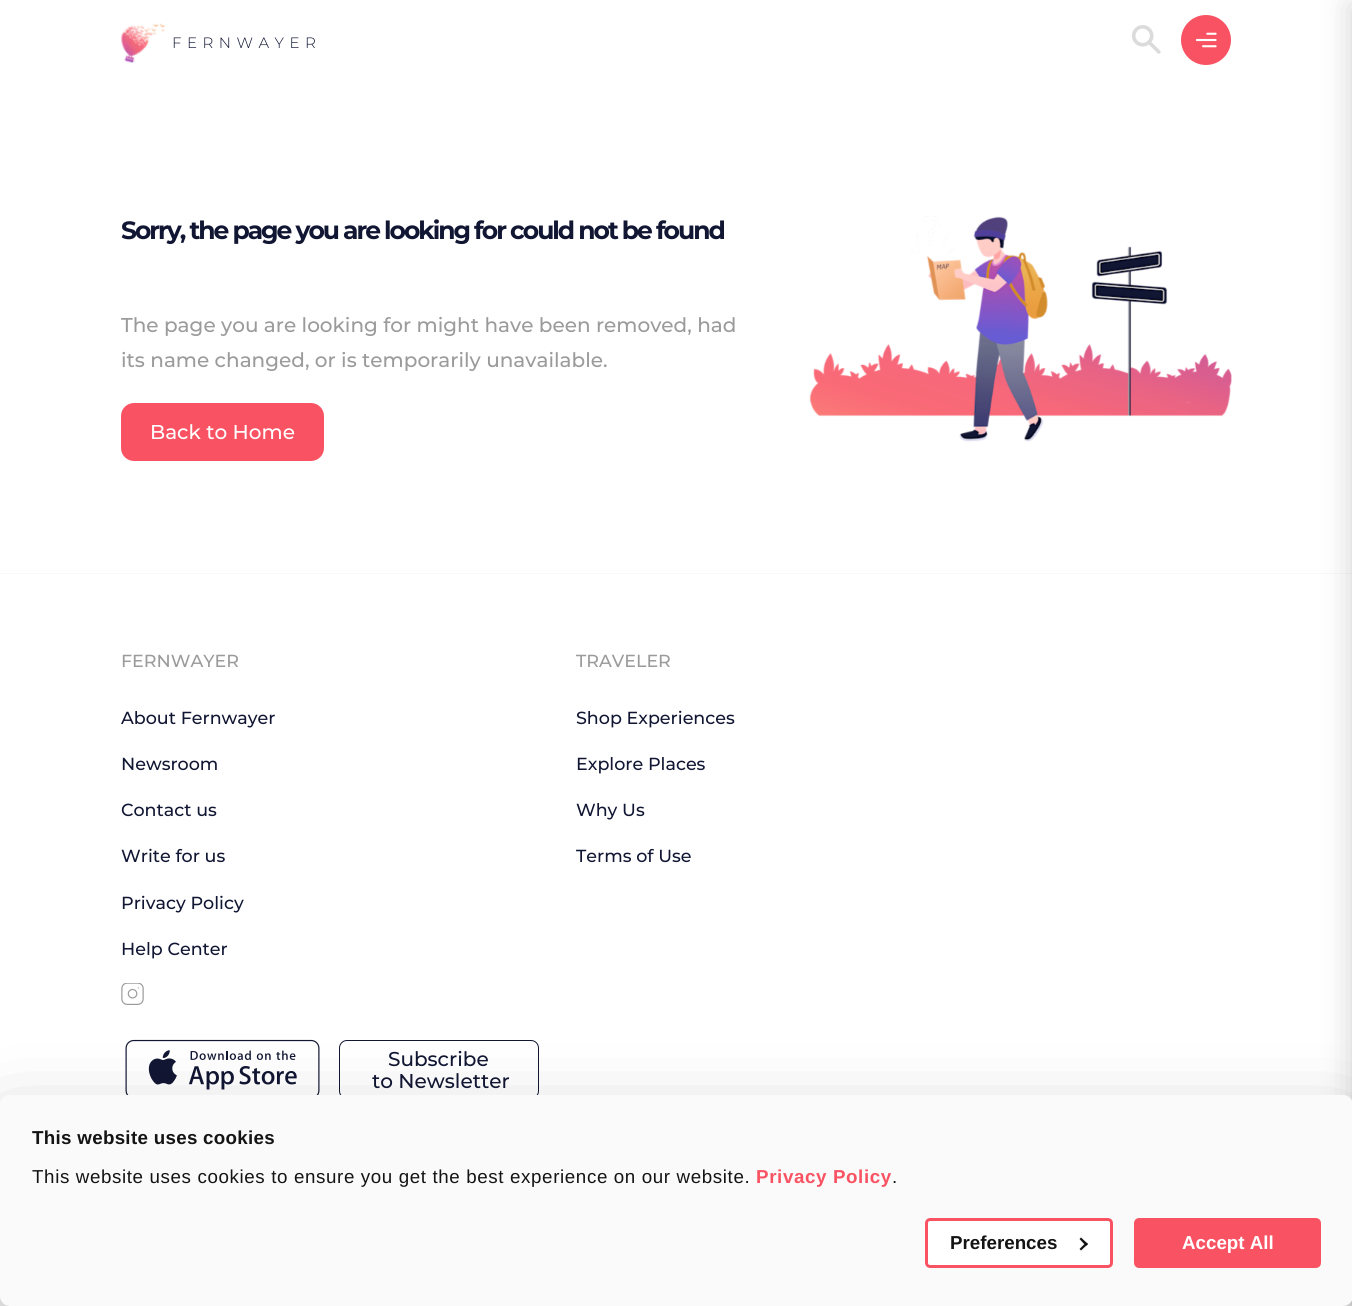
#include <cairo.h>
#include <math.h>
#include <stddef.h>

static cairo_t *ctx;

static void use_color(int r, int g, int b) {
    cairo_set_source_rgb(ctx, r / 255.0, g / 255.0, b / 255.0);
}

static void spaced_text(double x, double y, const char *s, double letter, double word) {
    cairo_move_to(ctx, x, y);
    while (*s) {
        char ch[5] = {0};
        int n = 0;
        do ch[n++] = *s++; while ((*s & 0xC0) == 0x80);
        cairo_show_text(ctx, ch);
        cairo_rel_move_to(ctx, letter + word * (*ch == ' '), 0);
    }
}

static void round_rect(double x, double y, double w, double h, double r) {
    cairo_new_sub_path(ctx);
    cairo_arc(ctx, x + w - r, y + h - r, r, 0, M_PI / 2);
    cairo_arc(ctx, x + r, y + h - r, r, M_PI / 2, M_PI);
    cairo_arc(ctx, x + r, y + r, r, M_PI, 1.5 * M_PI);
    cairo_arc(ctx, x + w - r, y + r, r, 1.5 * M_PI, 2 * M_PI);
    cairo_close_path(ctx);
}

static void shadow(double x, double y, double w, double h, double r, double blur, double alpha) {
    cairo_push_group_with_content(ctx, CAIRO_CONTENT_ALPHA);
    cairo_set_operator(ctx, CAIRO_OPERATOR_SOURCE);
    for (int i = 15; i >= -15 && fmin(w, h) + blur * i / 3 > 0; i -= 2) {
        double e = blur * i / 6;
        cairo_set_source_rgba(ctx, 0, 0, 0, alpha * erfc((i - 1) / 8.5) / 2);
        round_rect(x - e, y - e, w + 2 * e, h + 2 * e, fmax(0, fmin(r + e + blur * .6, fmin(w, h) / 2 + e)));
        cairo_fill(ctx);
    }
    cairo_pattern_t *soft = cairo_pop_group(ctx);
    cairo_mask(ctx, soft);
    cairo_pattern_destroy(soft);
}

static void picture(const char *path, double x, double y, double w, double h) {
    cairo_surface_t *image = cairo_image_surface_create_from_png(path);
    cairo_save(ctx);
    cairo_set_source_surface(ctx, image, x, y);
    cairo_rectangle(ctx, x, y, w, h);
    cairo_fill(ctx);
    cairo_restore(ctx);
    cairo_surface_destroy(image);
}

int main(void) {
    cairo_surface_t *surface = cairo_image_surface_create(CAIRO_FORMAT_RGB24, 1352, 1306);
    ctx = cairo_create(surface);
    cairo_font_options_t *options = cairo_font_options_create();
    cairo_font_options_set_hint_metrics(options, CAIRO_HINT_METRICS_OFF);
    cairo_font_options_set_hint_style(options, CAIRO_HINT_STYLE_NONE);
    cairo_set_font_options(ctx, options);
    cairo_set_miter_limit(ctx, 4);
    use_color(255, 255, 255);
    cairo_paint(ctx);
    picture("img1.png", 121, 23, 44, 40);
    cairo_select_font_face(ctx, "Montserrat Light", CAIRO_FONT_SLANT_NORMAL, CAIRO_FONT_WEIGHT_NORMAL);
    cairo_set_font_size(ctx, 15);
    use_color(17, 22, 51);
    spaced_text(172, 48, "FERNWAYER", 5.5, 0);
    picture("img2.png", 1131, 25, 30, 29);
    picture("img3.png", 1181, 15, 50, 50);
    use_color(248, 248, 250);
    cairo_rectangle(ctx, 0, 573, 1352, 1);
    cairo_fill(ctx);
    use_color(0, 0, 0);
    shadow(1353, 5, 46, 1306, 0, 15.5, 0.2);
    cairo_select_font_face(ctx, "Montserrat", CAIRO_FONT_SLANT_NORMAL, CAIRO_FONT_WEIGHT_BOLD);
    cairo_set_font_size(ctx, 25);
    use_color(17, 22, 51);
    spaced_text(121, 239, "Sorry, the page you are looking for could not be found", -2, 0);
    cairo_select_font_face(ctx, "Montserrat Medium", CAIRO_FONT_SLANT_NORMAL, CAIRO_FONT_WEIGHT_NORMAL);
    cairo_set_font_size(ctx, 20);
    use_color(155, 155, 155);
    cairo_move_to(ctx, 121, 332);
    cairo_show_text(ctx, "The page you are looking for might have been removed, had");
    cairo_move_to(ctx, 121, 367);
    cairo_show_text(ctx, "its name changed, or is temporarily unavailable.");
    use_color(249, 83, 99);
    round_rect(121, 403, 203, 58, 13);
    cairo_fill(ctx);
    use_color(255, 255, 255);
    cairo_move_to(ctx, 150, 439);
    cairo_show_text(ctx, "Back to Home");
    picture("img4.png", 809, 216, 423, 226);
    cairo_set_font_size(ctx, 17.5);
    use_color(155, 155, 155);
    cairo_move_to(ctx, 121, 667);
    cairo_show_text(ctx, "FERNWAYER");
    use_color(17, 22, 51);
    cairo_move_to(ctx, 121, 724);
    cairo_show_text(ctx, "About Fernwayer");
    cairo_move_to(ctx, 121, 770);
    cairo_show_text(ctx, "Newsroom");
    cairo_move_to(ctx, 121, 816);
    cairo_show_text(ctx, "Contact us");
    cairo_move_to(ctx, 121, 862);
    cairo_show_text(ctx, "Write for us");
    cairo_move_to(ctx, 121, 909);
    cairo_show_text(ctx, "Privacy Policy");
    cairo_move_to(ctx, 121, 955);
    cairo_show_text(ctx, "Help Center");
    picture("img5.png", 121, 983, 23, 22);
    picture("img6.png", 125, 1039, 195, 56);
    round_rect(339.5, 1040.5, 199, 58, 7.5);
    cairo_set_line_width(ctx, 1);
    cairo_stroke(ctx);
    cairo_set_font_size(ctx, 20);
    cairo_move_to(ctx, 388, 1066);
    cairo_show_text(ctx, "Subscribe");
    cairo_move_to(ctx, 372, 1088);
    cairo_show_text(ctx, "to Newsletter");
    cairo_set_font_size(ctx, 17.5);
    use_color(155, 155, 155);
    cairo_move_to(ctx, 576, 667);
    cairo_show_text(ctx, "TRAVELER");
    use_color(17, 22, 51);
    cairo_move_to(ctx, 576, 724);
    cairo_show_text(ctx, "Shop Experiences");
    cairo_move_to(ctx, 576, 770);
    cairo_show_text(ctx, "Explore Places");
    cairo_move_to(ctx, 576, 816);
    cairo_show_text(ctx, "Why Us");
    cairo_move_to(ctx, 576, 862);
    cairo_show_text(ctx, "Terms of Use");
    use_color(0, 0, 0);
    shadow(0, 1135, 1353, 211, 10, 42.5, 0.3);
    use_color(250, 250, 250);
    round_rect(0, 1095, 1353, 211, 10);
    cairo_fill(ctx);
    cairo_select_font_face(ctx, "Liberation Sans", CAIRO_FONT_SLANT_NORMAL, CAIRO_FONT_WEIGHT_BOLD);
    cairo_set_font_size(ctx, 18.75);
    use_color(20, 20, 20);
    spaced_text(32, 1144, "This website uses cookies", 0.3, 0);
    cairo_select_font_face(ctx, "Liberation Sans", CAIRO_FONT_SLANT_NORMAL, CAIRO_FONT_WEIGHT_NORMAL);
    spaced_text(32, 1183, "This website uses cookies to ensure you get the best experience on our website.", 0.62, 0);
    cairo_select_font_face(ctx, "Liberation Sans", CAIRO_FONT_SLANT_NORMAL, CAIRO_FONT_WEIGHT_BOLD);
    use_color(249, 83, 99);
    spaced_text(756, 1183, "Privacy Policy", 0.62, 0);
    cairo_select_font_face(ctx, "Liberation Sans", CAIRO_FONT_SLANT_NORMAL, CAIRO_FONT_WEIGHT_NORMAL);
    use_color(20, 20, 20);
    spaced_text(892, 1183, ".", 0.62, 0);
    use_color(255, 255, 255);
    round_rect(926.5, 1219.5, 185, 47, 3.5);
    cairo_fill_preserve(ctx);
    use_color(249, 83, 99);
    cairo_set_line_width(ctx, 3);
    cairo_stroke(ctx);
    cairo_select_font_face(ctx, "Liberation Sans", CAIRO_FONT_SLANT_NORMAL, CAIRO_FONT_WEIGHT_BOLD);
    use_color(20, 20, 20);
    cairo_move_to(ctx, 950, 1249);
    cairo_show_text(ctx, "Preferences");
    cairo_new_path(ctx);
    cairo_move_to(ctx, 1081, 1237.5);
    cairo_line_to(ctx, 1088, 1244);
    cairo_line_to(ctx, 1086, 1246);
    cairo_line_to(ctx, 1079.5, 1239);
    cairo_close_path(ctx);
    cairo_fill(ctx);
    cairo_new_path(ctx);
    cairo_move_to(ctx, 1086, 1242.5);
    cairo_line_to(ctx, 1088, 1244);
    cairo_line_to(ctx, 1081, 1250.5);
    cairo_line_to(ctx, 1079.5, 1249);
    cairo_close_path(ctx);
    cairo_fill(ctx);
    use_color(249, 83, 99);
    round_rect(1135.5, 1219.5, 184, 47, 3.5);
    cairo_fill_preserve(ctx);
    cairo_stroke(ctx);
    use_color(255, 255, 255);
    cairo_move_to(ctx, 1182, 1249);
    cairo_show_text(ctx, "Accept All");
    cairo_surface_write_to_png(surface, "result.png");
    cairo_font_options_destroy(options);
    cairo_destroy(ctx);
    cairo_surface_destroy(surface);
    return 0;
}
